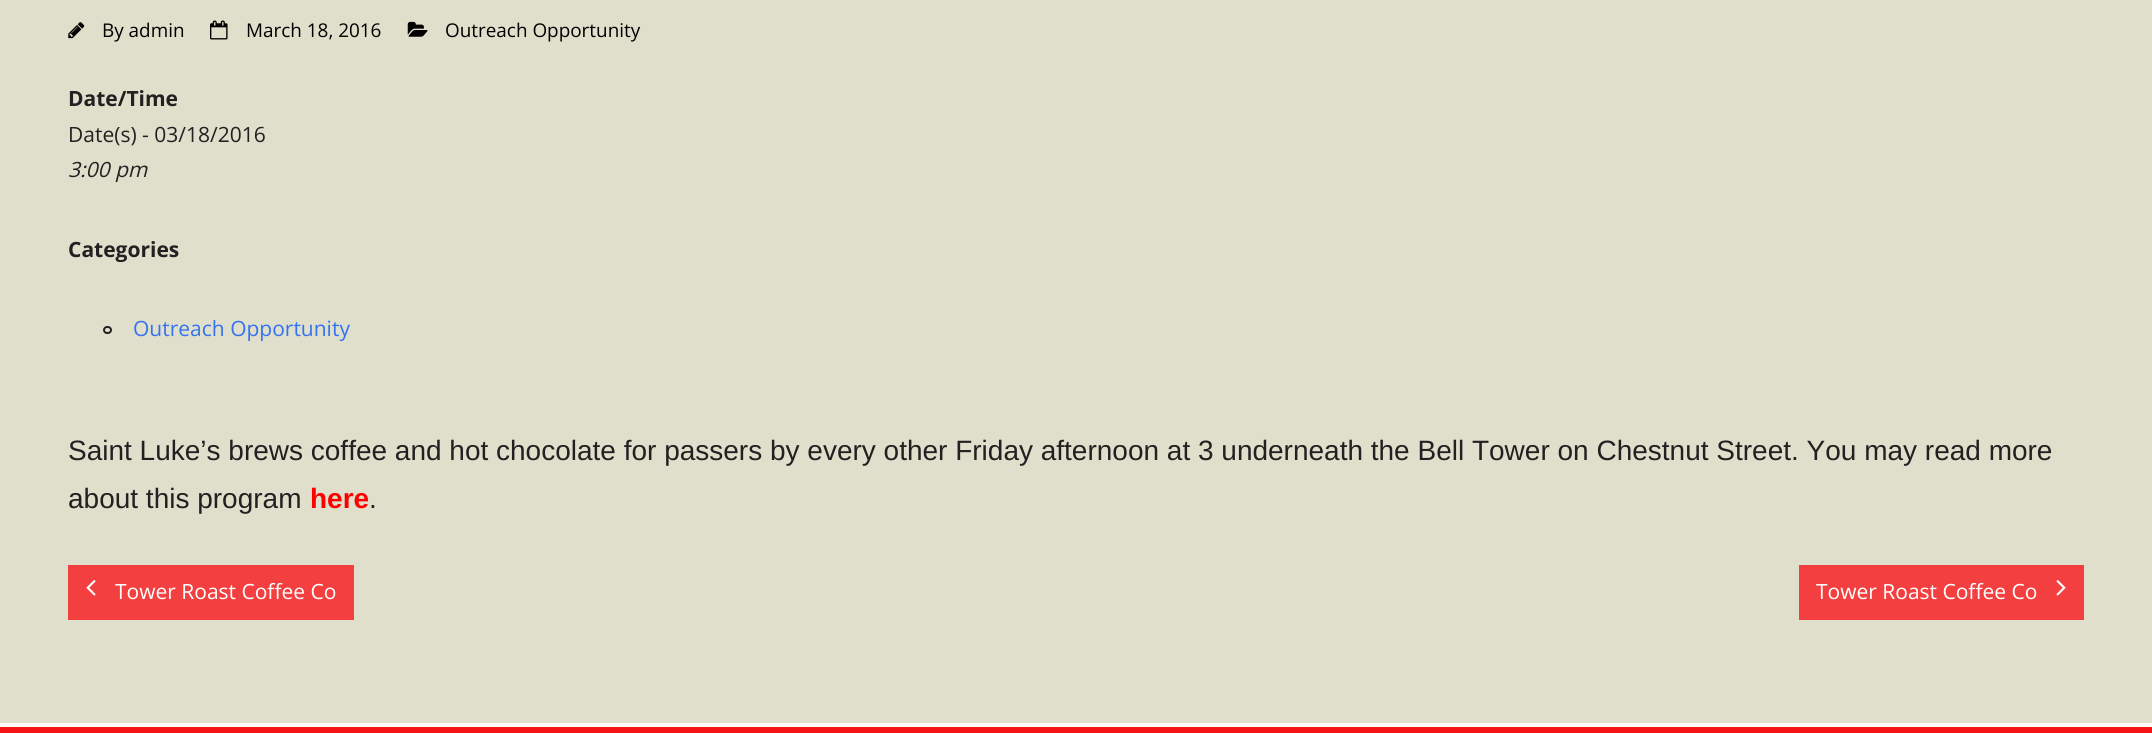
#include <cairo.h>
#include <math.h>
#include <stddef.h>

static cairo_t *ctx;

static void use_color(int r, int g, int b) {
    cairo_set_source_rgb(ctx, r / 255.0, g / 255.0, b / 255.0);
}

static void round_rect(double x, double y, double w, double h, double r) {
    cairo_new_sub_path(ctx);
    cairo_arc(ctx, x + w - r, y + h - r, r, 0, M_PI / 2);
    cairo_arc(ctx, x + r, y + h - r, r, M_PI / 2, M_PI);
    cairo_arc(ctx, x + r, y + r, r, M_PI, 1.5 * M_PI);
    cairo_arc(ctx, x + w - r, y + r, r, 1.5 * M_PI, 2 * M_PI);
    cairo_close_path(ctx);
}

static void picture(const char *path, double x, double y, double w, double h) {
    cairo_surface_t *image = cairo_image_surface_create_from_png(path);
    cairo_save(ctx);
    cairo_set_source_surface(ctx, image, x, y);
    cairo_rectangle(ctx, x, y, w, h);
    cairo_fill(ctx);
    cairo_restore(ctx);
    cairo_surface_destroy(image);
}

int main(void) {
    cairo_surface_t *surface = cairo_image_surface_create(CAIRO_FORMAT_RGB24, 2152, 733);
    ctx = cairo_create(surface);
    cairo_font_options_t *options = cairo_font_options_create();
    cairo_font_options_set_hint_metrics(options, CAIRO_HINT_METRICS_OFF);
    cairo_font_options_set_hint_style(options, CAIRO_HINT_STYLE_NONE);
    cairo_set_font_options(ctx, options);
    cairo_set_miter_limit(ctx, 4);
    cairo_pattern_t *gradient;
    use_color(224, 223, 204);
    cairo_paint(ctx);
    picture("img1.png", 68, 22, 17, 17);
    cairo_select_font_face(ctx, "Open Sans", CAIRO_FONT_SLANT_NORMAL, CAIRO_FONT_WEIGHT_NORMAL);
    cairo_set_font_size(ctx, 18.9);
    use_color(0, 0, 0);
    cairo_move_to(ctx, 102, 37);
    cairo_show_text(ctx, "By admin");
    picture("img2.png", 210, 20, 18, 20);
    cairo_move_to(ctx, 246, 37);
    cairo_show_text(ctx, "March 18, 2016");
    picture("img3.png", 407, 21, 21, 16);
    cairo_move_to(ctx, 445, 37);
    cairo_show_text(ctx, "Outreach Opportunity");
    cairo_select_font_face(ctx, "Open Sans", CAIRO_FONT_SLANT_NORMAL, CAIRO_FONT_WEIGHT_BOLD);
    cairo_set_font_size(ctx, 21);
    use_color(33, 33, 33);
    cairo_move_to(ctx, 68, 106);
    cairo_show_text(ctx, "Date/Time");
    cairo_select_font_face(ctx, "Open Sans", CAIRO_FONT_SLANT_NORMAL, CAIRO_FONT_WEIGHT_NORMAL);
    cairo_move_to(ctx, 68, 142);
    cairo_show_text(ctx, "Date(s) - 03/18/2016");
    cairo_select_font_face(ctx, "Open Sans", CAIRO_FONT_SLANT_ITALIC, CAIRO_FONT_WEIGHT_NORMAL);
    cairo_move_to(ctx, 68, 177);
    cairo_show_text(ctx, "3:00 pm");
    cairo_select_font_face(ctx, "Open Sans", CAIRO_FONT_SLANT_NORMAL, CAIRO_FONT_WEIGHT_BOLD);
    cairo_move_to(ctx, 68, 257);
    cairo_show_text(ctx, "Categories");
    round_rect(104, 327, 7, 6, 3);
    cairo_stroke(ctx);
    cairo_select_font_face(ctx, "Open Sans", CAIRO_FONT_SLANT_NORMAL, CAIRO_FONT_WEIGHT_NORMAL);
    use_color(51, 114, 240);
    cairo_move_to(ctx, 133, 336);
    cairo_show_text(ctx, "Outreach Opportunity");
    cairo_select_font_face(ctx, "Liberation Sans", CAIRO_FONT_SLANT_NORMAL, CAIRO_FONT_WEIGHT_NORMAL);
    cairo_set_font_size(ctx, 28);
    use_color(33, 33, 33);
    cairo_move_to(ctx, 68, 460);
    cairo_show_text(ctx, "Saint Luke’s brews coffee and hot chocolate for passers by every other Friday afternoon at 3 underneath the Bell Tower on Chestnut Street. You may read more");
    cairo_move_to(ctx, 68, 508);
    cairo_show_text(ctx, "about this program");
    cairo_select_font_face(ctx, "Liberation Sans", CAIRO_FONT_SLANT_NORMAL, CAIRO_FONT_WEIGHT_BOLD);
    use_color(255, 0, 0);
    cairo_move_to(ctx, 310, 508);
    cairo_show_text(ctx, "here");
    cairo_select_font_face(ctx, "Liberation Sans", CAIRO_FONT_SLANT_NORMAL, CAIRO_FONT_WEIGHT_NORMAL);
    use_color(33, 33, 33);
    cairo_move_to(ctx, 369, 508);
    cairo_show_text(ctx, ".");
    use_color(243, 63, 63);
    cairo_rectangle(ctx, 68, 565, 286, 55);
    cairo_fill(ctx);
    picture("img4.png", 86, 580, 10, 16);
    cairo_select_font_face(ctx, "Open Sans", CAIRO_FONT_SLANT_NORMAL, CAIRO_FONT_WEIGHT_NORMAL);
    cairo_set_font_size(ctx, 21);
    use_color(255, 255, 255);
    cairo_move_to(ctx, 115, 599);
    cairo_show_text(ctx, "Tower Roast Coffee Co");
    use_color(243, 63, 63);
    cairo_rectangle(ctx, 1799, 565, 285, 55);
    cairo_fill(ctx);
    use_color(255, 255, 255);
    cairo_move_to(ctx, 1816, 599);
    cairo_show_text(ctx, "Tower Roast Coffee Co");
    picture("img5.png", 2056, 580, 10, 16);
    gradient = cairo_pattern_create_linear(1076, 726, 1076, 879);
    cairo_pattern_add_color_stop_rgba(gradient, 0, 0.965, 0.078, 0.078, 1);
    cairo_pattern_add_color_stop_rgba(gradient, 0.5, 0.851, 0.055, 0.055, 1);
    cairo_pattern_add_color_stop_rgba(gradient, 1, 0.678, 0.055, 0.055, 1);
    cairo_set_source(ctx, gradient);
    cairo_pattern_destroy(gradient);
    cairo_rectangle(ctx, 0, 727, 2152, 6);
    cairo_fill(ctx);
    use_color(255, 255, 255);
    cairo_rectangle(ctx, 0, 723, 2152, 4);
    cairo_fill(ctx);
    cairo_surface_write_to_png(surface, "result.png");
    cairo_font_options_destroy(options);
    cairo_destroy(ctx);
    cairo_surface_destroy(surface);
    return 0;
}
